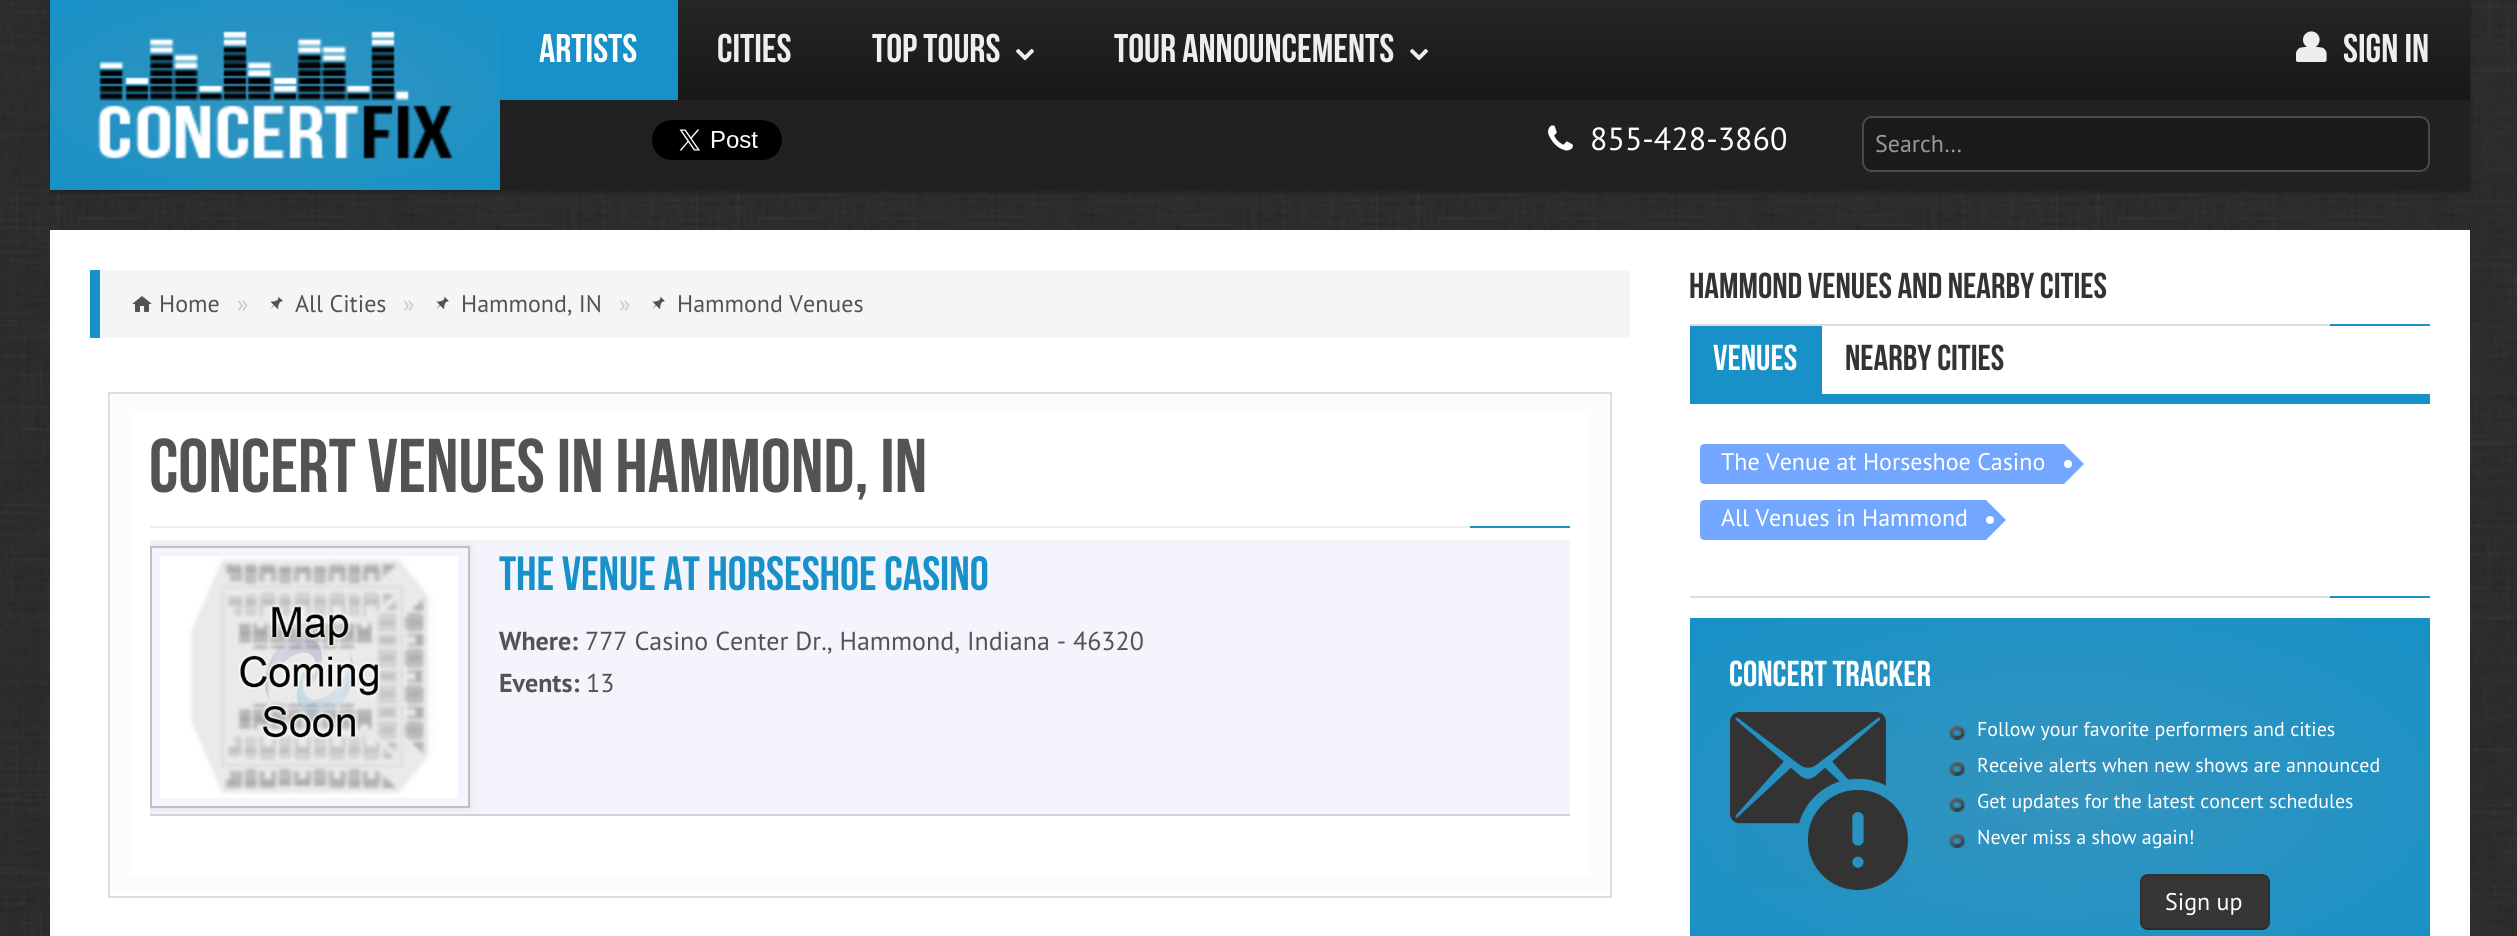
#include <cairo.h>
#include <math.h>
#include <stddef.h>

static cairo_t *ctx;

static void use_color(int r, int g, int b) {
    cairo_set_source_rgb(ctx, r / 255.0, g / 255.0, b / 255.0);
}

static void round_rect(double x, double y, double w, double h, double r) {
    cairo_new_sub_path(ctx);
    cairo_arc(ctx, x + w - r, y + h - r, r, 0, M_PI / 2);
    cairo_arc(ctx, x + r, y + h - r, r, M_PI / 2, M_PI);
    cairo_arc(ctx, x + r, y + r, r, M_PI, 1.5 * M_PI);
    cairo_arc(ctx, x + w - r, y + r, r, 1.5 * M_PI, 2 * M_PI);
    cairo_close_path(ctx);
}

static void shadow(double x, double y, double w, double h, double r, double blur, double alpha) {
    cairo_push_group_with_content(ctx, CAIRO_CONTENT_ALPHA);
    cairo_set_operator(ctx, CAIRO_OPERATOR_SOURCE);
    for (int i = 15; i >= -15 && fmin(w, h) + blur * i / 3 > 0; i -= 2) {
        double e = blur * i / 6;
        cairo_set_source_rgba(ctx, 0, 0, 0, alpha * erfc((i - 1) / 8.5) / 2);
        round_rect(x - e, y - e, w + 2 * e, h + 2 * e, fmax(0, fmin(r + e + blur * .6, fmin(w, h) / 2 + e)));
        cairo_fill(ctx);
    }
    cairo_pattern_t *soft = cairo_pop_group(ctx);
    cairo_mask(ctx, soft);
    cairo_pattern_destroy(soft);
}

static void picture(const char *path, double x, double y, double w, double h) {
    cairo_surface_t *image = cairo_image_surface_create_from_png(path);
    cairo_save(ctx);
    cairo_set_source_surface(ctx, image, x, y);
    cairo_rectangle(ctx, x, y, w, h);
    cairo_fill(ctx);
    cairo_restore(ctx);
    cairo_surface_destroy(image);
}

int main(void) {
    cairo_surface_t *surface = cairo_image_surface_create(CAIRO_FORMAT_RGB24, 2517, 936);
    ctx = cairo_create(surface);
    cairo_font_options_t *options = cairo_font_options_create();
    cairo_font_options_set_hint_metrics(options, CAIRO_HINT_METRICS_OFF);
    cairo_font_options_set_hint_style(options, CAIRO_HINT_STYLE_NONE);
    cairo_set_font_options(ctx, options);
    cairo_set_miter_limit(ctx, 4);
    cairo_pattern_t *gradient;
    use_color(255, 255, 255);
    cairo_paint(ctx);
    picture("img1.png", 0, 0, 2517, 936);
    use_color(0, 0, 0);
    shadow(50, 2, 2420, 190, 0, 2, 0.3);
    gradient = cairo_pattern_create_radial(0, 0, 0, 0, 0, 1);
    cairo_pattern_set_matrix(gradient, &(cairo_matrix_t){1.0 / 318, 0, 0, 1.0 / 134, -1.0 * 275 / 318, -1.0 * 95 / 134});
    cairo_pattern_add_color_stop_rgba(gradient, 0, 0.204, 0.58, 0.745, 1);
    cairo_pattern_add_color_stop_rgba(gradient, 1, 0.09, 0.569, 0.78, 1);
    cairo_set_source(ctx, gradient);
    cairo_pattern_destroy(gradient);
    cairo_rectangle(ctx, 50, 0, 450, 190);
    cairo_fill(ctx);
    picture("img2.png", 97, 31, 356, 128);
    picture("img3.png", 678, 0, 1792, 100);
    use_color(23, 145, 199);
    cairo_rectangle(ctx, 500, 0, 178, 100);
    cairo_fill(ctx);
    cairo_select_font_face(ctx, "Bebas Neue", CAIRO_FONT_SLANT_NORMAL, CAIRO_FONT_WEIGHT_NORMAL);
    cairo_set_font_size(ctx, 40);
    use_color(255, 255, 255);
    cairo_move_to(ctx, 539, 62);
    cairo_show_text(ctx, "Artists");
    use_color(238, 238, 238);
    cairo_move_to(ctx, 717, 62);
    cairo_show_text(ctx, "Cities");
    cairo_move_to(ctx, 872, 62);
    cairo_show_text(ctx, "Top Tours");
    picture("img4.png", 1016, 48, 18, 13);
    cairo_move_to(ctx, 1114, 62);
    cairo_show_text(ctx, "Tour Announcements");
    picture("img4.png", 1410, 48, 18, 13);
    picture("img5.png", 2296, 31, 31, 31);
    cairo_move_to(ctx, 2343, 62);
    cairo_show_text(ctx, "Sign in");
    use_color(33, 33, 33);
    cairo_rectangle(ctx, 500, 100, 1970, 90);
    cairo_fill(ctx);
    picture("img6.png", 652, 120, 130, 40);
    picture("img7.png", 1548, 125, 25, 26);
    cairo_select_font_face(ctx, "PT Sans", CAIRO_FONT_SLANT_NORMAL, CAIRO_FONT_WEIGHT_NORMAL);
    cairo_set_font_size(ctx, 32);
    use_color(255, 255, 255);
    cairo_move_to(ctx, 1590, 150);
    cairo_show_text(ctx, "855-428-3860");
    use_color(26, 26, 26);
    round_rect(1862, 116, 568, 56, 10);
    cairo_fill(ctx);
    round_rect(1863, 117, 566, 54, 9);
    cairo_set_source_rgba(ctx, 1, 1, 1, 0.21);
    cairo_stroke(ctx);
    cairo_set_font_size(ctx, 24);
    use_color(153, 153, 153);
    cairo_move_to(ctx, 1875, 152);
    cairo_show_text(ctx, "Search…");
    use_color(255, 255, 255);
    cairo_rectangle(ctx, 50, 230, 2420, 706);
    cairo_fill(ctx);
    use_color(245, 245, 245);
    cairo_rectangle(ctx, 100, 270, 1530, 68);
    cairo_fill(ctx);
    use_color(23, 145, 199);
    cairo_rectangle(ctx, 90, 270, 10, 68);
    cairo_fill(ctx);
    picture("img8.png", 132, 296, 20, 16);
    use_color(83, 83, 83);
    cairo_move_to(ctx, 159, 312);
    cairo_show_text(ctx, "Home");
    use_color(204, 204, 204);
    cairo_move_to(ctx, 237, 312);
    cairo_show_text(ctx, "»");
    picture("img9.png", 270, 297, 13, 12);
    use_color(83, 83, 83);
    cairo_move_to(ctx, 295, 312);
    cairo_show_text(ctx, "All Cities");
    use_color(204, 204, 204);
    cairo_move_to(ctx, 403, 312);
    cairo_show_text(ctx, "»");
    picture("img9.png", 436, 297, 13, 12);
    use_color(83, 83, 83);
    cairo_move_to(ctx, 461, 312);
    cairo_show_text(ctx, "Hammond, IN");
    use_color(204, 204, 204);
    cairo_move_to(ctx, 619, 312);
    cairo_show_text(ctx, "»");
    picture("img9.png", 652, 297, 13, 12);
    use_color(83, 83, 83);
    cairo_move_to(ctx, 677, 312);
    cairo_show_text(ctx, "Hammond Venues");
    cairo_rectangle(ctx, 109, 393, 1502, 504);
    use_color(221, 221, 221);
    cairo_stroke(ctx);
    cairo_rectangle(ctx, 121, 405, 1478, 480);
    use_color(252, 252, 252);
    cairo_set_line_width(ctx, 18);
    cairo_stroke(ctx);
    cairo_select_font_face(ctx, "Bebas Neue", CAIRO_FONT_SLANT_NORMAL, CAIRO_FONT_WEIGHT_NORMAL);
    cairo_set_font_size(ctx, 76);
    use_color(83, 83, 83);
    cairo_move_to(ctx, 149, 492);
    cairo_show_text(ctx, "Concert Venues in Hammond, IN");
    use_color(238, 238, 238);
    cairo_rectangle(ctx, 150, 526, 1320, 2);
    cairo_fill(ctx);
    use_color(23, 145, 199);
    cairo_rectangle(ctx, 1470, 526, 100, 2);
    cairo_fill(ctx);
    use_color(244, 245, 252);
    cairo_rectangle(ctx, 150, 540, 1420, 274);
    cairo_fill(ctx);
    use_color(209, 210, 215);
    cairo_rectangle(ctx, 150, 814, 1420, 2);
    cairo_fill(ctx);
    cairo_save(ctx);
    cairo_rectangle(ctx, 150, 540, 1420, 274);
    cairo_clip(ctx);
    cairo_set_fill_rule(ctx, CAIRO_FILL_RULE_EVEN_ODD);
    cairo_new_path(ctx);
    cairo_move_to(ctx, 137, 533);
    cairo_line_to(ctx, 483, 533);
    cairo_line_to(ctx, 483, 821);
    cairo_line_to(ctx, 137, 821);
    cairo_close_path(ctx);
    cairo_move_to(ctx, 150, 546);
    cairo_line_to(ctx, 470, 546);
    cairo_line_to(ctx, 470, 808);
    cairo_line_to(ctx, 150, 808);
    cairo_close_path(ctx);
    cairo_clip(ctx);
    use_color(0, 0, 0);
    shadow(150, 546, 320, 262, 0, 4, 0.1);
    cairo_restore(ctx);
    cairo_rectangle(ctx, 151, 547, 318, 260);
    use_color(192, 192, 192);
    cairo_set_line_width(ctx, 2);
    cairo_stroke(ctx);
    picture("img10.png", 160, 556, 298, 242);
    cairo_set_font_size(ctx, 48);
    use_color(23, 145, 199);
    cairo_move_to(ctx, 499, 590);
    cairo_show_text(ctx, "The Venue at Horseshoe Casino");
    cairo_select_font_face(ctx, "PT Sans", CAIRO_FONT_SLANT_NORMAL, CAIRO_FONT_WEIGHT_BOLD);
    cairo_set_font_size(ctx, 26);
    use_color(83, 83, 83);
    cairo_move_to(ctx, 499, 650);
    cairo_show_text(ctx, "Where:");
    cairo_select_font_face(ctx, "PT Sans", CAIRO_FONT_SLANT_NORMAL, CAIRO_FONT_WEIGHT_NORMAL);
    cairo_move_to(ctx, 585, 650);
    cairo_show_text(ctx, "777 Casino Center Dr., Hammond, Indiana - 46320");
    cairo_select_font_face(ctx, "PT Sans", CAIRO_FONT_SLANT_NORMAL, CAIRO_FONT_WEIGHT_BOLD);
    cairo_move_to(ctx, 499, 692);
    cairo_show_text(ctx, "Events:");
    cairo_select_font_face(ctx, "PT Sans", CAIRO_FONT_SLANT_NORMAL, CAIRO_FONT_WEIGHT_NORMAL);
    cairo_move_to(ctx, 586, 692);
    cairo_show_text(ctx, "13");
    cairo_select_font_face(ctx, "Bebas Neue", CAIRO_FONT_SLANT_NORMAL, CAIRO_FONT_WEIGHT_NORMAL);
    cairo_set_font_size(ctx, 36);
    use_color(51, 51, 51);
    cairo_move_to(ctx, 1689, 298);
    cairo_show_text(ctx, "Hammond Venues and nearby cities");
    use_color(221, 221, 221);
    cairo_rectangle(ctx, 1690, 324, 640, 2);
    cairo_fill(ctx);
    use_color(23, 145, 199);
    cairo_rectangle(ctx, 2330, 324, 100, 2);
    cairo_fill(ctx);
    cairo_rectangle(ctx, 1690, 394, 740, 10);
    cairo_fill(ctx);
    cairo_rectangle(ctx, 1690, 326, 132, 68);
    cairo_fill(ctx);
    use_color(255, 255, 255);
    cairo_move_to(ctx, 1713, 370);
    cairo_show_text(ctx, "Venues");
    use_color(51, 51, 51);
    cairo_move_to(ctx, 1845, 370);
    cairo_show_text(ctx, "Nearby Cities");
    use_color(115, 167, 255);
    cairo_new_path(ctx);
    cairo_move_to(ctx, 1704, 444);
    cairo_line_to(ctx, 2064, 444);
    cairo_line_to(ctx, 2064, 484);
    cairo_line_to(ctx, 1704, 484);
    cairo_curve_to(ctx, 1702, 484, 1700, 482, 1700, 480);
    cairo_line_to(ctx, 1700, 448);
    cairo_curve_to(ctx, 1700, 446, 1702, 444, 1704, 444);
    cairo_close_path(ctx);
    cairo_fill(ctx);
    cairo_select_font_face(ctx, "PT Sans", CAIRO_FONT_SLANT_NORMAL, CAIRO_FONT_WEIGHT_NORMAL);
    cairo_set_font_size(ctx, 24);
    use_color(255, 255, 255);
    cairo_move_to(ctx, 1721, 470);
    cairo_show_text(ctx, "The Venue at Horseshoe Casino");
    use_color(115, 167, 255);
    cairo_new_path(ctx);
    cairo_move_to(ctx, 2064, 484);
    cairo_line_to(ctx, 2064, 444);
    cairo_line_to(ctx, 2084, 464);
    cairo_close_path(ctx);
    cairo_fill(ctx);
    use_color(255, 255, 255);
    cairo_arc(ctx, 2068, 464, 4, 0, 2 * M_PI);
    cairo_fill(ctx);
    use_color(115, 167, 255);
    cairo_new_path(ctx);
    cairo_move_to(ctx, 1704, 500);
    cairo_line_to(ctx, 1986, 500);
    cairo_line_to(ctx, 1986, 540);
    cairo_line_to(ctx, 1704, 540);
    cairo_curve_to(ctx, 1702, 540, 1700, 538, 1700, 536);
    cairo_line_to(ctx, 1700, 504);
    cairo_curve_to(ctx, 1700, 502, 1702, 500, 1704, 500);
    cairo_close_path(ctx);
    cairo_fill(ctx);
    use_color(255, 255, 255);
    cairo_move_to(ctx, 1721, 526);
    cairo_show_text(ctx, "All Venues in Hammond");
    use_color(115, 167, 255);
    cairo_new_path(ctx);
    cairo_move_to(ctx, 1986, 540);
    cairo_line_to(ctx, 1986, 500);
    cairo_line_to(ctx, 2006, 520);
    cairo_close_path(ctx);
    cairo_fill(ctx);
    use_color(255, 255, 255);
    cairo_arc(ctx, 1990, 520, 4, 0, 2 * M_PI);
    cairo_fill(ctx);
    use_color(221, 221, 221);
    cairo_rectangle(ctx, 1690, 596, 640, 2);
    cairo_fill(ctx);
    use_color(23, 145, 199);
    cairo_rectangle(ctx, 2330, 596, 100, 2);
    cairo_fill(ctx);
    gradient = cairo_pattern_create_radial(0, 0, 0, 0, 0, 1);
    cairo_pattern_set_matrix(gradient, &(cairo_matrix_t){1.0 / 523, 0, 0, 1.0 / 249, -1.0 * 2060 / 523, -1.0 * 794 / 249});
    cairo_pattern_add_color_stop_rgba(gradient, 0, 0.204, 0.58, 0.745, 1);
    cairo_pattern_add_color_stop_rgba(gradient, 1, 0.09, 0.569, 0.78, 1);
    cairo_set_source(ctx, gradient);
    cairo_pattern_destroy(gradient);
    cairo_rectangle(ctx, 1690, 618, 740, 318);
    cairo_fill(ctx);
    cairo_select_font_face(ctx, "Bebas Neue", CAIRO_FONT_SLANT_NORMAL, CAIRO_FONT_WEIGHT_NORMAL);
    cairo_set_font_size(ctx, 36);
    use_color(255, 255, 255);
    cairo_move_to(ctx, 1729, 686);
    cairo_show_text(ctx, "Concert Tracker");
    picture("img11.png", 1730, 712, 178, 178);
    picture("img12.png", 1948, 726, 18, 14);
    cairo_select_font_face(ctx, "PT Sans", CAIRO_FONT_SLANT_NORMAL, CAIRO_FONT_WEIGHT_NORMAL);
    cairo_set_font_size(ctx, 20);
    cairo_move_to(ctx, 1977, 736);
    cairo_show_text(ctx, "Follow your favorite performers and cities");
    picture("img13.png", 1948, 762, 18, 14);
    cairo_move_to(ctx, 1977, 772);
    cairo_show_text(ctx, "Receive alerts when new shows are announced");
    picture("img14.png", 1948, 798, 18, 14);
    cairo_move_to(ctx, 1977, 808);
    cairo_show_text(ctx, "Get updates for the latest concert schedules");
    picture("img15.png", 1948, 834, 18, 14);
    cairo_move_to(ctx, 1977, 844);
    cairo_show_text(ctx, "Never miss a show again!");
    use_color(54, 54, 54);
    round_rect(2140, 874, 130, 56, 8);
    cairo_fill(ctx);
    cairo_new_path(ctx);
    cairo_move_to(ctx, 2267, 927);
    cairo_curve_to(ctx, 2265.5, 928.5, 2264, 929, 2262, 929);
    cairo_line_to(ctx, 2148, 929);
    cairo_curve_to(ctx, 2146, 929, 2144.5, 928.5, 2143, 927);
    cairo_set_source_rgba(ctx, 0, 0, 0, 0.25);
    cairo_stroke(ctx);
    cairo_new_path(ctx);
    cairo_move_to(ctx, 2143, 927);
    cairo_curve_to(ctx, 2140, 924, 2141, 919, 2141, 915.5);
    cairo_line_to(ctx, 2141, 902);
    cairo_curve_to(ctx, 2141, 872.5, 2136.5, 875, 2167, 875);
    cairo_line_to(ctx, 2243, 875);
    cairo_curve_to(ctx, 2273.5, 875, 2269, 872.5, 2269, 902);
    cairo_line_to(ctx, 2269, 915.5);
    cairo_curve_to(ctx, 2269, 919, 2270, 924, 2267, 927);
    cairo_set_source_rgba(ctx, 0, 0, 0, 0.1);
    cairo_stroke(ctx);
    cairo_set_font_size(ctx, 24);
    use_color(255, 255, 255);
    cairo_move_to(ctx, 2165, 910);
    cairo_show_text(ctx, "Sign up");
    cairo_surface_write_to_png(surface, "result.png");
    cairo_font_options_destroy(options);
    cairo_destroy(ctx);
    cairo_surface_destroy(surface);
    return 0;
}
